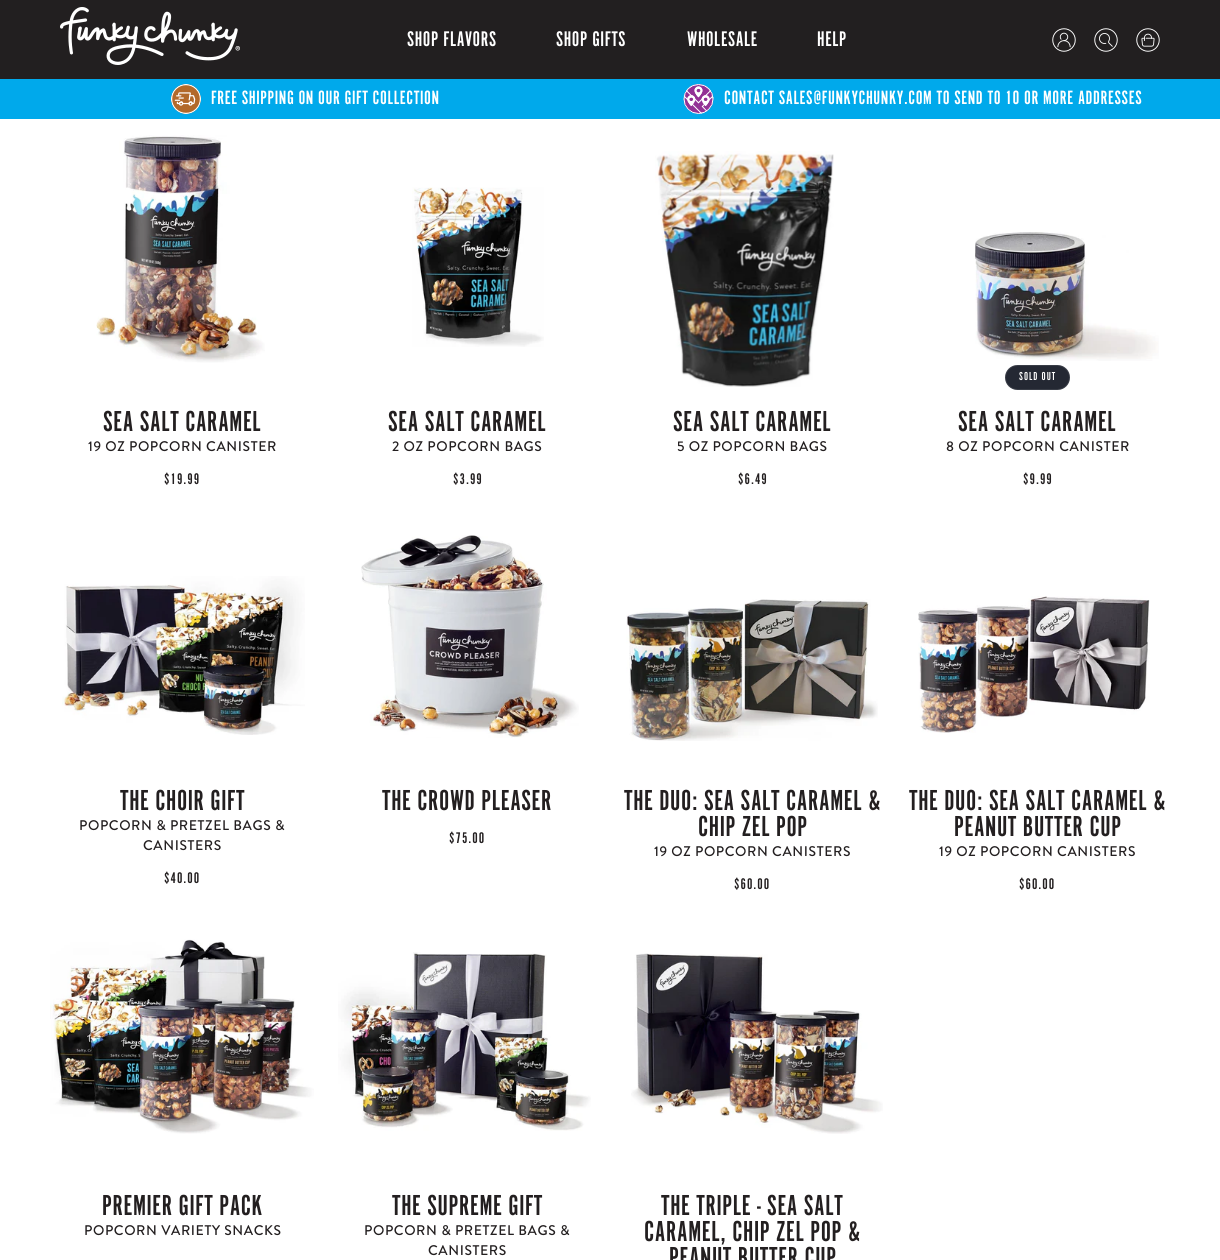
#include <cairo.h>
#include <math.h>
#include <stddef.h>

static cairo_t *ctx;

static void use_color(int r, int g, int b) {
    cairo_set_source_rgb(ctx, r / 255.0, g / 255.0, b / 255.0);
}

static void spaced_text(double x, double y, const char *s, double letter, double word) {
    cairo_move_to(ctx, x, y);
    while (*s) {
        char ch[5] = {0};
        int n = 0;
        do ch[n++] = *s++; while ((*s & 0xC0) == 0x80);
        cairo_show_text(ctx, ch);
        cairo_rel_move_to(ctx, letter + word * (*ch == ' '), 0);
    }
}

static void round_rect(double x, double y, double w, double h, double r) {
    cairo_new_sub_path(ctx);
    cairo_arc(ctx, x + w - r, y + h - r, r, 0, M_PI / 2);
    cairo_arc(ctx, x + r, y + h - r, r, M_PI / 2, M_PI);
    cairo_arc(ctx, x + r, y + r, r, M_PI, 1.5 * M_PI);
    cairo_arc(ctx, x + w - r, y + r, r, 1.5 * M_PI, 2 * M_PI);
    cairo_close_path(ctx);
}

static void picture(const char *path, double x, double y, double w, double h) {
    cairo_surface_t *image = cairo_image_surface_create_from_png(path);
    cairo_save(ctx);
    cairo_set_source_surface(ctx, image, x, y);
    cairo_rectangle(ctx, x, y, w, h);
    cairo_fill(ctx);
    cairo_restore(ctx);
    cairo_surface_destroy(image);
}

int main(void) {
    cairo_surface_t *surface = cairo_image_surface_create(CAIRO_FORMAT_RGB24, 1220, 1260);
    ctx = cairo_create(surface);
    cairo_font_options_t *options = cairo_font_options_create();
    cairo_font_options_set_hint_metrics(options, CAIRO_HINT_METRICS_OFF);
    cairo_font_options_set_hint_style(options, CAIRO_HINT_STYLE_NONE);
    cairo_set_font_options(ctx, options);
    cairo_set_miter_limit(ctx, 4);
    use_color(255, 255, 255);
    cairo_paint(ctx);
    use_color(34, 31, 32);
    cairo_rectangle(ctx, 0, 0, 1220, 79);
    cairo_fill(ctx);
    picture("img1.png", 60, 7, 180, 58);
    cairo_select_font_face(ctx, "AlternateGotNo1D", CAIRO_FONT_SLANT_NORMAL, CAIRO_FONT_WEIGHT_NORMAL);
    cairo_set_font_size(ctx, 22);
    use_color(255, 255, 255);
    spaced_text(407, 46, "SHOP FLAVORS", 0.6, 0);
    spaced_text(556, 46, "SHOP GIFTS", 0.6, 0);
    spaced_text(687, 46, "WHOLESALE", 0.6, 0);
    spaced_text(817, 46, "HELP", 0.6, 0);
    picture("img2.png", 1052, 28, 24, 24);
    picture("img3.png", 1094, 28, 24, 24);
    picture("img4.png", 1136, 28, 24, 24);
    use_color(0, 169, 235);
    cairo_rectangle(ctx, 0, 79, 1220, 40);
    cairo_fill(ctx);
    picture("img5.png", 171, 84, 30, 30);
    cairo_set_font_size(ctx, 20);
    use_color(255, 255, 255);
    spaced_text(211, 104, "FREE SHIPPING ON OUR GIFT COLLECTION", 0.6, 0);
    picture("img6.png", 683, 84, 31, 30);
    spaced_text(724, 104, "CONTACT SALES@FUNKYCHUNKY.COM TO SEND TO 10 OR MORE ADDRESSES", 0.6, 0);
    picture("img7.png", 96, 135, 169, 228);
    cairo_set_font_size(ctx, 30);
    use_color(35, 31, 32);
    spaced_text(103, 431, "SEA SALT CARAMEL", 0.6, 0);
    cairo_select_font_face(ctx, "Brandon Grotesque Medium", CAIRO_FONT_SLANT_NORMAL, CAIRO_FONT_WEIGHT_NORMAL);
    cairo_set_font_size(ctx, 14);
    spaced_text(88, 451, "19 OZ POPCORN CANISTER", 0.6, 0);
    cairo_select_font_face(ctx, "AlternateGotNo1D", CAIRO_FONT_SLANT_NORMAL, CAIRO_FONT_WEIGHT_NORMAL);
    cairo_set_font_size(ctx, 16);
    spaced_text(164, 484, "$19.99", 1, 0);
    picture("img8.png", 412, 187, 132, 160);
    cairo_set_font_size(ctx, 30);
    spaced_text(388, 431, "SEA SALT CARAMEL", 0.6, 0);
    cairo_select_font_face(ctx, "Brandon Grotesque Medium", CAIRO_FONT_SLANT_NORMAL, CAIRO_FONT_WEIGHT_NORMAL);
    cairo_set_font_size(ctx, 14);
    spaced_text(392, 451, "2 OZ POPCORN BAGS", 0.6, 0);
    cairo_select_font_face(ctx, "AlternateGotNo1D", CAIRO_FONT_SLANT_NORMAL, CAIRO_FONT_WEIGHT_NORMAL);
    cairo_set_font_size(ctx, 16);
    spaced_text(453, 484, "$3.99", 1, 0);
    picture("img9.png", 655, 151, 179, 236);
    cairo_set_font_size(ctx, 30);
    spaced_text(673, 431, "SEA SALT CARAMEL", 0.6, 0);
    cairo_select_font_face(ctx, "Brandon Grotesque Medium", CAIRO_FONT_SLANT_NORMAL, CAIRO_FONT_WEIGHT_NORMAL);
    cairo_set_font_size(ctx, 14);
    spaced_text(677, 451, "5 OZ POPCORN BAGS", 0.6, 0);
    cairo_select_font_face(ctx, "AlternateGotNo1D", CAIRO_FONT_SLANT_NORMAL, CAIRO_FONT_WEIGHT_NORMAL);
    cairo_set_font_size(ctx, 16);
    spaced_text(738, 484, "$6.49", 1, 0);
    picture("img10.png", 975, 232, 184, 129);
    use_color(36, 40, 51);
    round_rect(1005, 365, 65, 25, 12.5);
    cairo_fill(ctx);
    round_rect(1005.5, 365.5, 64, 24, 12);
    cairo_set_source_rgba(ctx, 1, 1, 1, 0.1);
    cairo_set_line_width(ctx, 1);
    cairo_stroke(ctx);
    cairo_set_font_size(ctx, 12);
    use_color(255, 255, 255);
    spaced_text(1019, 380, "SOLD OUT", 1, 0);
    cairo_set_font_size(ctx, 30);
    use_color(35, 31, 32);
    spaced_text(958, 431, "SEA SALT CARAMEL", 0.6, 0);
    cairo_select_font_face(ctx, "Brandon Grotesque Medium", CAIRO_FONT_SLANT_NORMAL, CAIRO_FONT_WEIGHT_NORMAL);
    cairo_set_font_size(ctx, 14);
    spaced_text(946, 451, "8 OZ POPCORN CANISTER", 0.6, 0);
    cairo_select_font_face(ctx, "AlternateGotNo1D", CAIRO_FONT_SLANT_NORMAL, CAIRO_FONT_WEIGHT_NORMAL);
    cairo_set_font_size(ctx, 16);
    spaced_text(1023, 484, "$9.99", 1, 0);
    picture("img11.png", 62, 576, 243, 159);
    cairo_set_font_size(ctx, 30);
    spaced_text(120, 810, "THE CHOIR GIFT", 0.6, 0);
    cairo_select_font_face(ctx, "Brandon Grotesque Medium", CAIRO_FONT_SLANT_NORMAL, CAIRO_FONT_WEIGHT_NORMAL);
    cairo_set_font_size(ctx, 14);
    spaced_text(79, 830, "POPCORN & PRETZEL BAGS &", 0.6, 0);
    spaced_text(143, 850, "CANISTERS", 0.6, 0);
    cairo_select_font_face(ctx, "AlternateGotNo1D", CAIRO_FONT_SLANT_NORMAL, CAIRO_FONT_WEIGHT_NORMAL);
    cairo_set_font_size(ctx, 16);
    spaced_text(164, 883, "$40.00", 1, 0);
    picture("img12.png", 361, 535, 218, 203);
    cairo_set_font_size(ctx, 30);
    spaced_text(382, 810, "THE CROWD PLEASER", 0.6, 0);
    cairo_set_font_size(ctx, 16);
    spaced_text(449, 843, "$75.00", 1, 0);
    picture("img13.png", 626, 599, 252, 142);
    cairo_set_font_size(ctx, 30);
    spaced_text(624, 810, "THE DUO: SEA SALT CARAMEL &", 0.6, 0);
    spaced_text(698, 836, "CHIP ZEL POP", 0.6, 0);
    cairo_select_font_face(ctx, "Brandon Grotesque Medium", CAIRO_FONT_SLANT_NORMAL, CAIRO_FONT_WEIGHT_NORMAL);
    cairo_set_font_size(ctx, 14);
    spaced_text(654, 856, "19 OZ POPCORN CANISTERS", 0.6, 0);
    cairo_select_font_face(ctx, "AlternateGotNo1D", CAIRO_FONT_SLANT_NORMAL, CAIRO_FONT_WEIGHT_NORMAL);
    cairo_set_font_size(ctx, 16);
    spaced_text(734, 889, "$60.00", 1, 0);
    picture("img14.png", 918, 596, 232, 137);
    cairo_set_font_size(ctx, 30);
    spaced_text(909, 810, "THE DUO: SEA SALT CARAMEL &", 0.6, 0);
    spaced_text(954, 836, "PEANUT BUTTER CUP", 0.6, 0);
    cairo_select_font_face(ctx, "Brandon Grotesque Medium", CAIRO_FONT_SLANT_NORMAL, CAIRO_FONT_WEIGHT_NORMAL);
    cairo_set_font_size(ctx, 14);
    spaced_text(939, 856, "19 OZ POPCORN CANISTERS", 0.6, 0);
    cairo_select_font_face(ctx, "AlternateGotNo1D", CAIRO_FONT_SLANT_NORMAL, CAIRO_FONT_WEIGHT_NORMAL);
    cairo_set_font_size(ctx, 16);
    spaced_text(1019, 889, "$60.00", 1, 0);
    picture("img15.png", 50, 939, 264, 195);
    cairo_set_font_size(ctx, 30);
    spaced_text(102, 1215, "PREMIER GIFT PACK", 0.6, 0);
    cairo_select_font_face(ctx, "Brandon Grotesque Medium", CAIRO_FONT_SLANT_NORMAL, CAIRO_FONT_WEIGHT_NORMAL);
    cairo_set_font_size(ctx, 14);
    spaced_text(84, 1235, "POPCORN VARIETY SNACKS", 0.6, 0);
    picture("img16.png", 338, 952, 253, 179);
    cairo_select_font_face(ctx, "AlternateGotNo1D", CAIRO_FONT_SLANT_NORMAL, CAIRO_FONT_WEIGHT_NORMAL);
    cairo_set_font_size(ctx, 30);
    spaced_text(392, 1215, "THE SUPREME GIFT", 0.6, 0);
    cairo_select_font_face(ctx, "Brandon Grotesque Medium", CAIRO_FONT_SLANT_NORMAL, CAIRO_FONT_WEIGHT_NORMAL);
    cairo_set_font_size(ctx, 14);
    spaced_text(364, 1235, "POPCORN & PRETZEL BAGS &", 0.6, 0);
    spaced_text(428, 1255, "CANISTERS", 0.6, 0);
    picture("img17.png", 631, 953, 252, 181);
    cairo_select_font_face(ctx, "AlternateGotNo1D", CAIRO_FONT_SLANT_NORMAL, CAIRO_FONT_WEIGHT_NORMAL);
    cairo_set_font_size(ctx, 30);
    spaced_text(661, 1215, "THE TRIPLE - SEA SALT", 0.6, 0);
    spaced_text(644, 1241, "CARAMEL, CHIP ZEL POP &", 0.6, 0);
    spaced_text(669, 1267, "PEANUT BUTTER CUP", 0.6, 0);
    cairo_surface_write_to_png(surface, "result.png");
    cairo_font_options_destroy(options);
    cairo_destroy(ctx);
    cairo_surface_destroy(surface);
    return 0;
}
